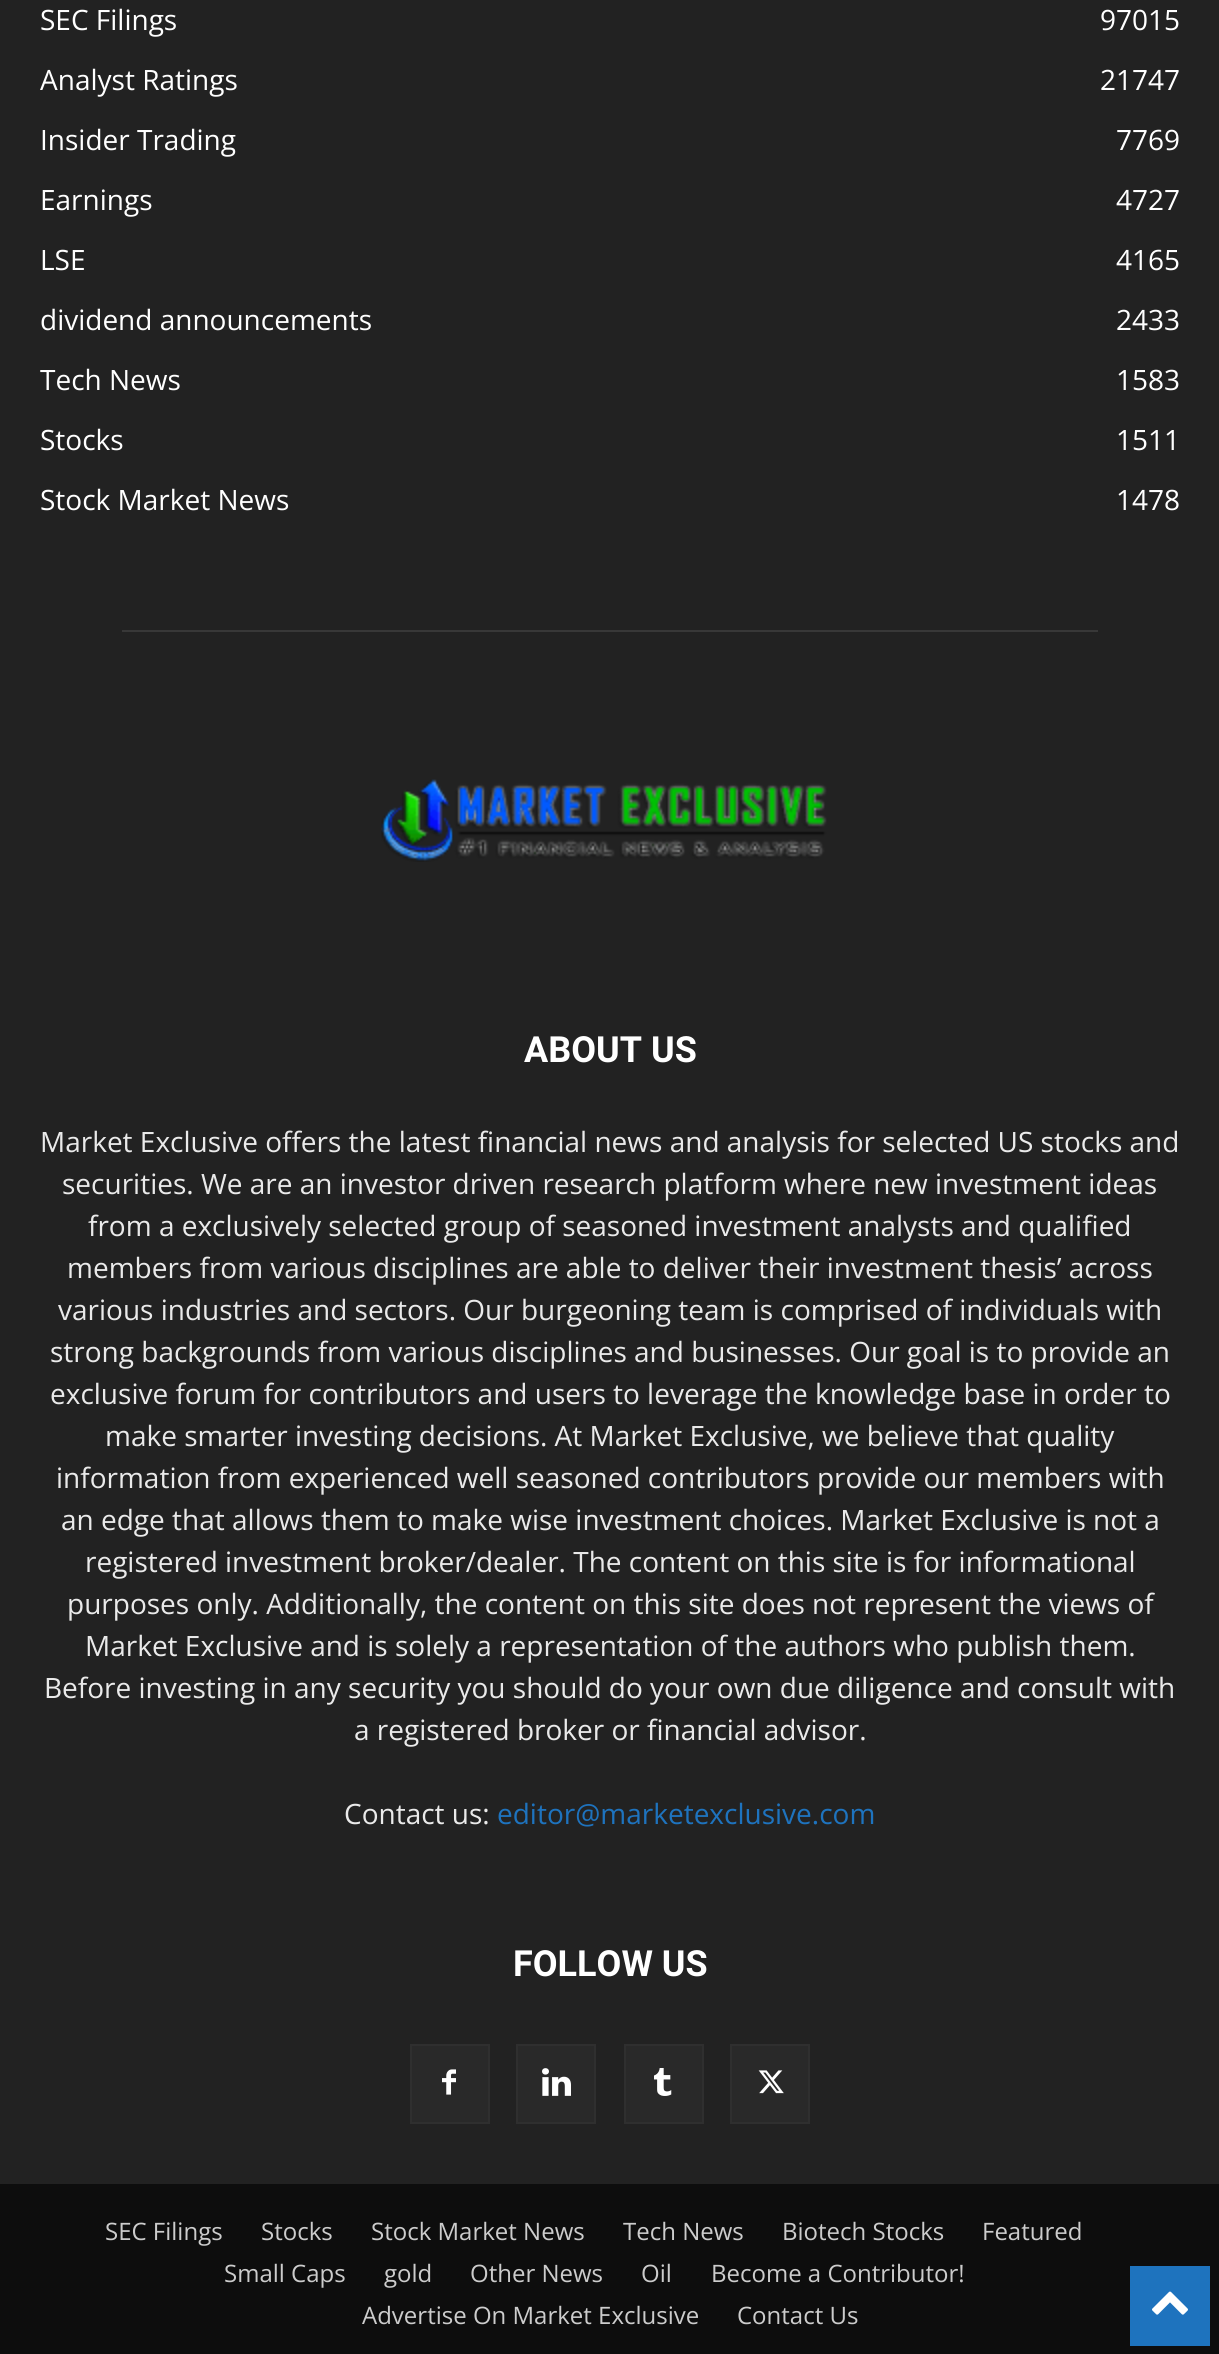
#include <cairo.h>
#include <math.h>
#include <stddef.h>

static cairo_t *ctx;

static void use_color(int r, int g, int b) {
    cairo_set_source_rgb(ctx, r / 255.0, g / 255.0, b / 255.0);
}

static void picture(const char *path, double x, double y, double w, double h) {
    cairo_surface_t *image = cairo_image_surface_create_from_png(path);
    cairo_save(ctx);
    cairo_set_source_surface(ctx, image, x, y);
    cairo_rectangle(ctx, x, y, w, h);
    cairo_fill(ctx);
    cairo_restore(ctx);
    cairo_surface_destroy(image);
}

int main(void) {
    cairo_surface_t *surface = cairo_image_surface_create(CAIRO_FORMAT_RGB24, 1219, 2354);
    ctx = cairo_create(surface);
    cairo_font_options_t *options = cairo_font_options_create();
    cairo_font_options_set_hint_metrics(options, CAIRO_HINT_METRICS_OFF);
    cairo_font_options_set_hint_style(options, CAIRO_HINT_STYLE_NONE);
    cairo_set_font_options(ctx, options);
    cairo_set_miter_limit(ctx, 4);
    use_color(13, 13, 13);
    cairo_paint(ctx);
    use_color(34, 34, 34);
    cairo_rectangle(ctx, 0, 0, 1219, 2184);
    cairo_fill(ctx);
    cairo_select_font_face(ctx, "Open Sans", CAIRO_FONT_SLANT_NORMAL, CAIRO_FONT_WEIGHT_NORMAL);
    cairo_set_font_size(ctx, 28);
    use_color(255, 255, 255);
    cairo_move_to(ctx, 40, 30);
    cairo_show_text(ctx, "SEC Filings");
    cairo_move_to(ctx, 1100, 30);
    cairo_show_text(ctx, "97015");
    cairo_move_to(ctx, 40, 90);
    cairo_show_text(ctx, "Analyst Ratings");
    cairo_move_to(ctx, 1100, 90);
    cairo_show_text(ctx, "21747");
    cairo_move_to(ctx, 40, 150);
    cairo_show_text(ctx, "Insider Trading");
    cairo_move_to(ctx, 1116, 150);
    cairo_show_text(ctx, "7769");
    cairo_move_to(ctx, 40, 210);
    cairo_show_text(ctx, "Earnings");
    cairo_move_to(ctx, 1116, 210);
    cairo_show_text(ctx, "4727");
    cairo_move_to(ctx, 40, 270);
    cairo_show_text(ctx, "LSE");
    cairo_move_to(ctx, 1116, 270);
    cairo_show_text(ctx, "4165");
    cairo_move_to(ctx, 40, 330);
    cairo_show_text(ctx, "dividend announcements");
    cairo_move_to(ctx, 1116, 330);
    cairo_show_text(ctx, "2433");
    cairo_move_to(ctx, 40, 390);
    cairo_show_text(ctx, "Tech News");
    cairo_move_to(ctx, 1116, 390);
    cairo_show_text(ctx, "1583");
    cairo_move_to(ctx, 40, 450);
    cairo_show_text(ctx, "Stocks");
    cairo_move_to(ctx, 1116, 450);
    cairo_show_text(ctx, "1511");
    cairo_move_to(ctx, 40, 510);
    cairo_show_text(ctx, "Stock Market News");
    cairo_move_to(ctx, 1116, 510);
    cairo_show_text(ctx, "1478");
    use_color(56, 56, 56);
    cairo_rectangle(ctx, 122, 630, 976, 2);
    cairo_fill(ctx);
    picture("img1.png", 381, 779, 446, 83);
    cairo_select_font_face(ctx, "Roboto", CAIRO_FONT_SLANT_NORMAL, CAIRO_FONT_WEIGHT_BOLD);
    cairo_set_font_size(ctx, 36);
    use_color(255, 255, 255);
    cairo_move_to(ctx, 524, 1062);
    cairo_show_text(ctx, "ABOUT US");
    cairo_select_font_face(ctx, "Open Sans", CAIRO_FONT_SLANT_NORMAL, CAIRO_FONT_WEIGHT_NORMAL);
    cairo_set_font_size(ctx, 28);
    use_color(234, 234, 234);
    cairo_move_to(ctx, 40, 1152);
    cairo_show_text(ctx, "Market Exclusive offers the latest financial news and analysis for selected US stocks and");
    cairo_move_to(ctx, 62, 1194);
    cairo_show_text(ctx, "securities. We are an investor driven research platform where new investment ideas");
    cairo_move_to(ctx, 88, 1236);
    cairo_show_text(ctx, "from a exclusively selected group of seasoned investment analysts and qualified");
    cairo_move_to(ctx, 67, 1278);
    cairo_show_text(ctx, "members from various disciplines are able to deliver their investment thesis’ across");
    cairo_move_to(ctx, 58, 1320);
    cairo_show_text(ctx, "various industries and sectors. Our burgeoning team is comprised of individuals with");
    cairo_move_to(ctx, 50, 1362);
    cairo_show_text(ctx, "strong backgrounds from various disciplines and businesses. Our goal is to provide an");
    cairo_move_to(ctx, 50, 1404);
    cairo_show_text(ctx, "exclusive forum for contributors and users to leverage the knowledge base in order to");
    cairo_move_to(ctx, 105, 1446);
    cairo_show_text(ctx, "make smarter investing decisions. At Market Exclusive, we believe that quality");
    cairo_move_to(ctx, 56, 1488);
    cairo_show_text(ctx, "information from experienced well seasoned contributors provide our members with");
    cairo_move_to(ctx, 61, 1530);
    cairo_show_text(ctx, "an edge that allows them to make wise investment choices. Market Exclusive is not a");
    cairo_move_to(ctx, 85, 1572);
    cairo_show_text(ctx, "registered investment broker/dealer. The content on this site is for informational");
    cairo_move_to(ctx, 67, 1614);
    cairo_show_text(ctx, "purposes only. Additionally, the content on this site does not represent the views of");
    cairo_move_to(ctx, 85, 1656);
    cairo_show_text(ctx, "Market Exclusive and is solely a representation of the authors who publish them.");
    cairo_move_to(ctx, 44, 1698);
    cairo_show_text(ctx, "Before investing in any security you should do your own due diligence and consult with");
    cairo_move_to(ctx, 354, 1740);
    cairo_show_text(ctx, "a registered broker or financial advisor.");
    cairo_move_to(ctx, 344, 1824);
    cairo_show_text(ctx, "Contact us:");
    use_color(30, 115, 190);
    cairo_move_to(ctx, 497, 1824);
    cairo_show_text(ctx, "editor@marketexclusive.com");
    cairo_select_font_face(ctx, "Roboto", CAIRO_FONT_SLANT_NORMAL, CAIRO_FONT_WEIGHT_BOLD);
    cairo_set_font_size(ctx, 36);
    use_color(255, 255, 255);
    cairo_move_to(ctx, 513, 1976);
    cairo_show_text(ctx, "FOLLOW US");
    use_color(41, 41, 41);
    cairo_rectangle(ctx, 412, 2046, 76, 76);
    cairo_fill(ctx);
    picture("img2.png", 442, 2069, 14, 26);
    cairo_rectangle(ctx, 411, 2045, 78, 78);
    use_color(47, 47, 47);
    cairo_stroke(ctx);
    use_color(41, 41, 41);
    cairo_rectangle(ctx, 518, 2046, 76, 76);
    cairo_fill(ctx);
    picture("img3.png", 542, 2068, 29, 28);
    cairo_rectangle(ctx, 517, 2045, 78, 78);
    use_color(47, 47, 47);
    cairo_stroke(ctx);
    use_color(41, 41, 41);
    cairo_rectangle(ctx, 626, 2046, 76, 76);
    cairo_fill(ctx);
    picture("img4.png", 654, 2068, 18, 28);
    cairo_rectangle(ctx, 625, 2045, 78, 78);
    use_color(47, 47, 47);
    cairo_stroke(ctx);
    use_color(41, 41, 41);
    cairo_rectangle(ctx, 732, 2046, 76, 76);
    cairo_fill(ctx);
    picture("img5.png", 758, 2070, 26, 24);
    cairo_rectangle(ctx, 731, 2045, 78, 78);
    use_color(47, 47, 47);
    cairo_stroke(ctx);
    cairo_select_font_face(ctx, "Open Sans", CAIRO_FONT_SLANT_NORMAL, CAIRO_FONT_WEIGHT_NORMAL);
    cairo_set_font_size(ctx, 24);
    use_color(204, 204, 204);
    cairo_move_to(ctx, 105, 2240);
    cairo_show_text(ctx, "SEC Filings");
    cairo_move_to(ctx, 261, 2240);
    cairo_show_text(ctx, "Stocks");
    cairo_move_to(ctx, 371, 2240);
    cairo_show_text(ctx, "Stock Market News");
    cairo_move_to(ctx, 623, 2240);
    cairo_show_text(ctx, "Tech News");
    cairo_move_to(ctx, 782, 2240);
    cairo_show_text(ctx, "Biotech Stocks");
    cairo_move_to(ctx, 982, 2240);
    cairo_show_text(ctx, "Featured");
    cairo_move_to(ctx, 224, 2282);
    cairo_show_text(ctx, "Small Caps");
    cairo_move_to(ctx, 384, 2282);
    cairo_show_text(ctx, "gold");
    cairo_move_to(ctx, 470, 2282);
    cairo_show_text(ctx, "Other News");
    cairo_move_to(ctx, 641, 2282);
    cairo_show_text(ctx, "Oil");
    cairo_move_to(ctx, 711, 2282);
    cairo_show_text(ctx, "Become a Contributor!");
    cairo_move_to(ctx, 362, 2324);
    cairo_show_text(ctx, "Advertise On Market Exclusive");
    cairo_move_to(ctx, 737, 2324);
    cairo_show_text(ctx, "Contact Us");
    use_color(30, 115, 190);
    cairo_rectangle(ctx, 1130, 2266, 80, 80);
    cairo_fill(ctx);
    picture("img6.png", 1152, 2291, 36, 24);
    cairo_surface_write_to_png(surface, "result.png");
    cairo_font_options_destroy(options);
    cairo_destroy(ctx);
    cairo_surface_destroy(surface);
    return 0;
}
